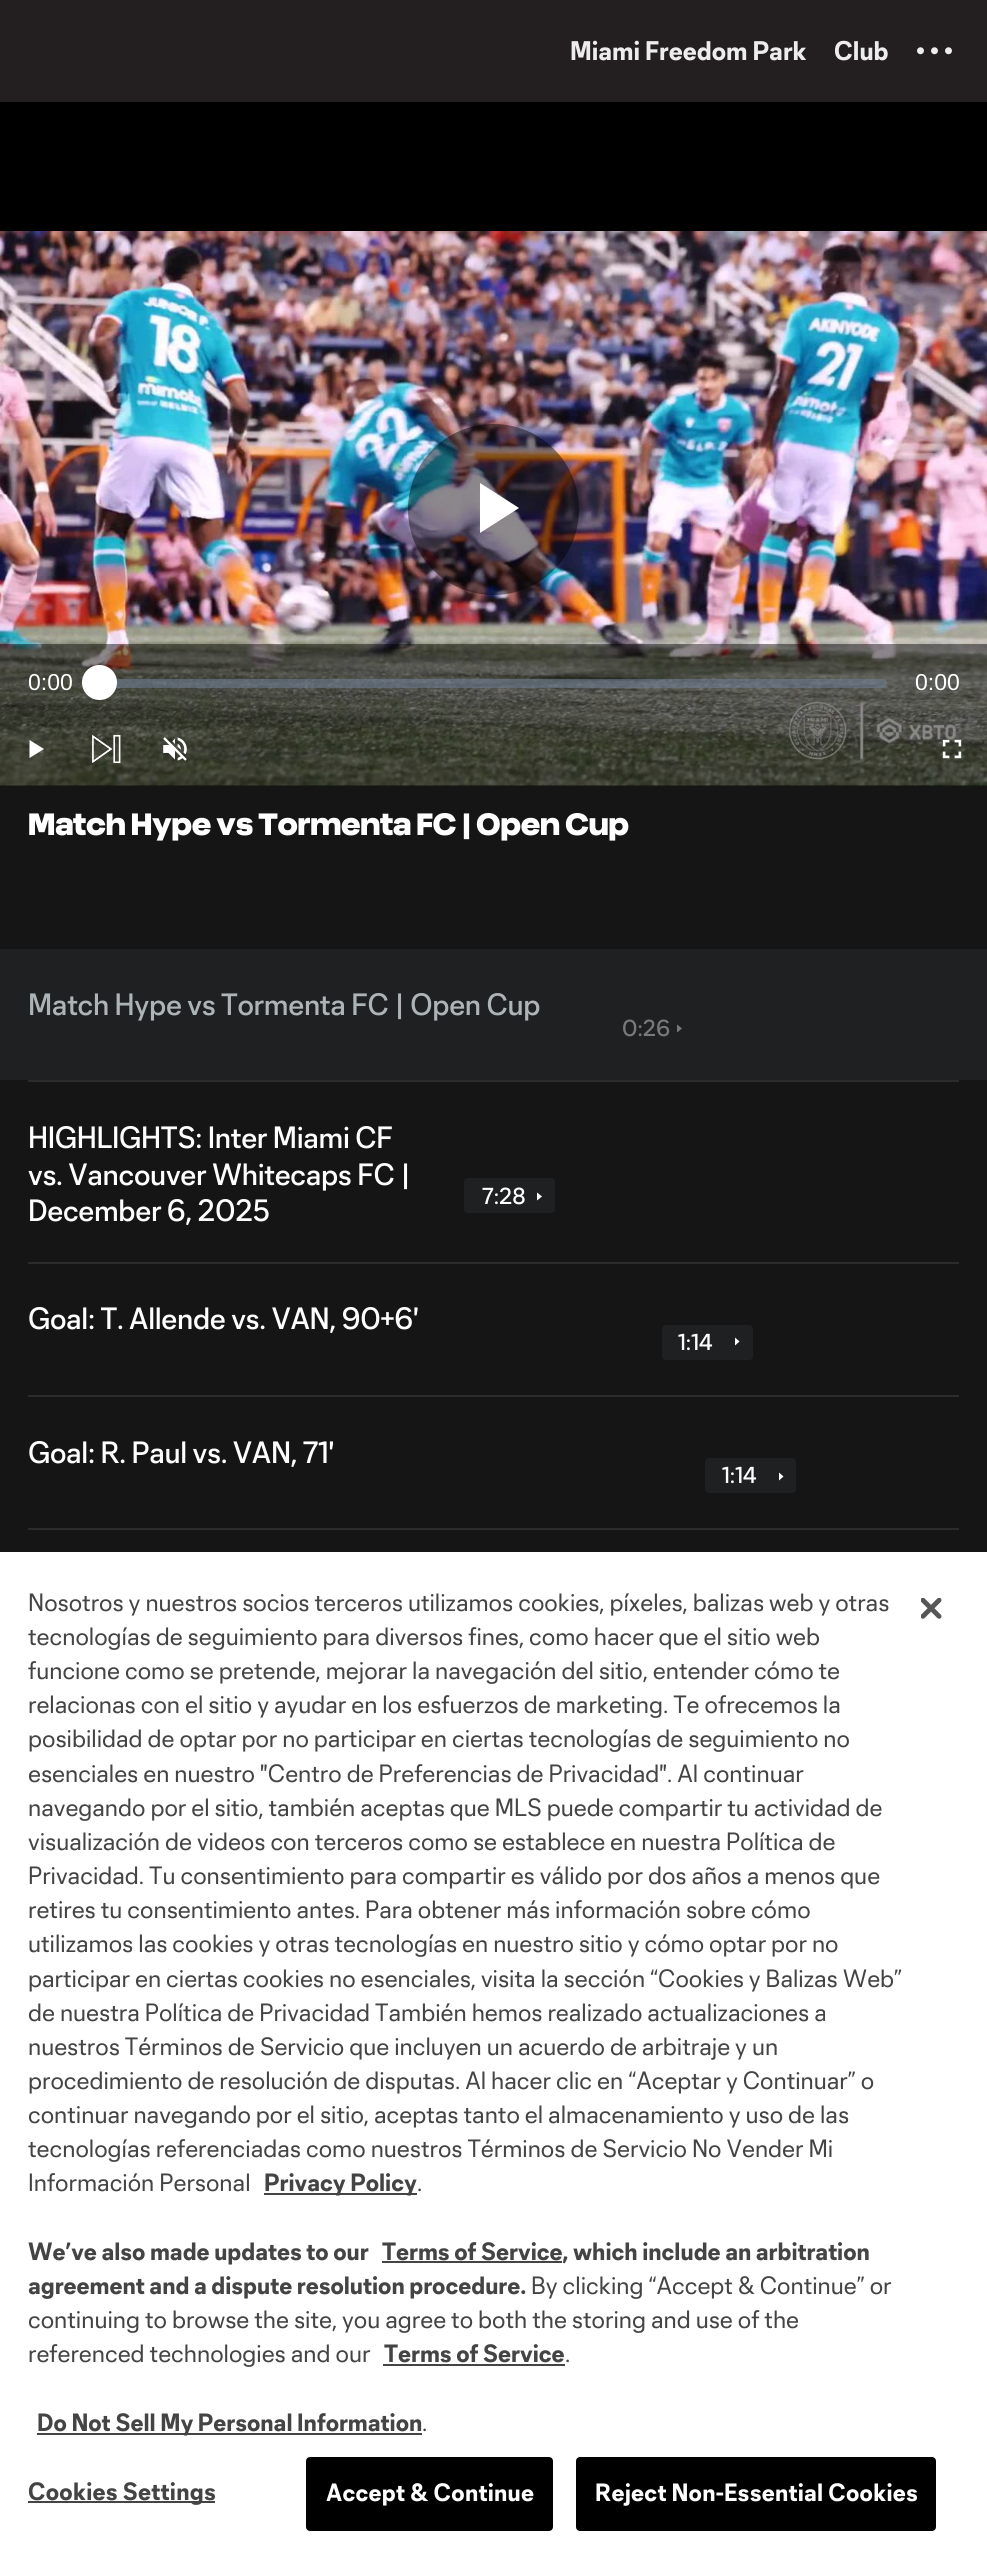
#include <cairo.h>
#include <math.h>
#include <stddef.h>

static cairo_t *ctx;

static void use_color(int r, int g, int b) {
    cairo_set_source_rgb(ctx, r / 255.0, g / 255.0, b / 255.0);
}

static void spaced_text(double x, double y, const char *s, double letter, double word) {
    cairo_move_to(ctx, x, y);
    while (*s) {
        char ch[5] = {0};
        int n = 0;
        do ch[n++] = *s++; while ((*s & 0xC0) == 0x80);
        cairo_show_text(ctx, ch);
        cairo_rel_move_to(ctx, letter + word * (*ch == ' '), 0);
    }
}

static void round_rect(double x, double y, double w, double h, double r) {
    cairo_new_sub_path(ctx);
    cairo_arc(ctx, x + w - r, y + h - r, r, 0, M_PI / 2);
    cairo_arc(ctx, x + r, y + h - r, r, M_PI / 2, M_PI);
    cairo_arc(ctx, x + r, y + r, r, M_PI, 1.5 * M_PI);
    cairo_arc(ctx, x + w - r, y + r, r, 1.5 * M_PI, 2 * M_PI);
    cairo_close_path(ctx);
}

static void picture(const char *path, double x, double y, double w, double h) {
    cairo_surface_t *image = cairo_image_surface_create_from_png(path);
    cairo_save(ctx);
    cairo_set_source_surface(ctx, image, x, y);
    cairo_rectangle(ctx, x, y, w, h);
    cairo_fill(ctx);
    cairo_restore(ctx);
    cairo_surface_destroy(image);
}

int main(void) {
    cairo_surface_t *surface = cairo_image_surface_create(CAIRO_FORMAT_RGB24, 987, 2564);
    ctx = cairo_create(surface);
    cairo_font_options_t *options = cairo_font_options_create();
    cairo_font_options_set_hint_metrics(options, CAIRO_HINT_METRICS_OFF);
    cairo_font_options_set_hint_style(options, CAIRO_HINT_STYLE_NONE);
    cairo_set_font_options(ctx, options);
    cairo_set_miter_limit(ctx, 4);
    use_color(0, 0, 0);
    cairo_paint(ctx);
    use_color(35, 31, 32);
    cairo_rectangle(ctx, 0, 0, 987, 102);
    cairo_fill(ctx);
    cairo_select_font_face(ctx, "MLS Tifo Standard", CAIRO_FONT_SLANT_NORMAL, CAIRO_FONT_WEIGHT_BOLD);
    cairo_set_font_size(ctx, 24.5);
    use_color(237, 237, 237);
    cairo_move_to(ctx, 570, 60);
    cairo_show_text(ctx, "Miami Freedom Park");
    cairo_move_to(ctx, 834, 60);
    cairo_show_text(ctx, "Club");
    picture("img1.png", 917, 47, 35, 8);
    use_color(21, 21, 22);
    cairo_rectangle(ctx, 0, 786, 987, 766);
    cairo_fill(ctx);
    use_color(21, 27, 23);
    cairo_rectangle(ctx, 0, 785, 987, 1);
    cairo_fill(ctx);
    picture("img2.png", 0, 231, 987, 555);
    cairo_set_source_rgba(ctx, 0, 0, 0, 0.45);
    cairo_arc(ctx, 493.5, 509.5, 85.5, 0, 2 * M_PI);
    cairo_fill(ctx);
    use_color(255, 255, 255);
    cairo_new_path(ctx);
    cairo_move_to(ctx, 480, 483);
    cairo_line_to(ctx, 480, 533);
    cairo_line_to(ctx, 519, 508);
    cairo_close_path(ctx);
    cairo_fill(ctx);
    cairo_set_source_rgba(ctx, 0, 0, 0, 0.45);
    cairo_rectangle(ctx, 0, 644, 987, 142);
    cairo_fill(ctx);
    cairo_select_font_face(ctx, "Liberation Sans", CAIRO_FONT_SLANT_NORMAL, CAIRO_FONT_WEIGHT_NORMAL);
    cairo_set_font_size(ctx, 23);
    use_color(255, 255, 255);
    cairo_move_to(ctx, 28, 690);
    cairo_show_text(ctx, "0:00");
    cairo_set_source_rgba(ctx, 0.451, 0.522, 0.624, 0.5);
    round_rect(100, 679, 787, 9, 4.5);
    cairo_fill(ctx);
    use_color(255, 255, 255);
    cairo_arc(ctx, 99.5, 682.5, 17.5, 0, 2 * M_PI);
    cairo_fill(ctx);
    cairo_move_to(ctx, 915, 690);
    cairo_show_text(ctx, "0:00");
    cairo_new_path(ctx);
    cairo_move_to(ctx, 29.5, 740);
    cairo_line_to(ctx, 29.5, 758);
    cairo_line_to(ctx, 44, 749);
    cairo_close_path(ctx);
    cairo_fill(ctx);
    picture("img3.png", 92, 734, 29, 30);
    picture("img4.png", 163, 737, 24, 24);
    picture("img5.png", 942, 739, 20, 20);
    cairo_select_font_face(ctx, "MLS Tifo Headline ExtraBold", CAIRO_FONT_SLANT_NORMAL, CAIRO_FONT_WEIGHT_NORMAL);
    cairo_set_font_size(ctx, 28);
    spaced_text(28, 835, "Match Hype vs Tormenta FC | Open Cup", -0.3, 0);
    use_color(31, 32, 33);
    cairo_rectangle(ctx, 0, 949, 987, 131);
    cairo_fill(ctx);
    cairo_select_font_face(ctx, "MLS Tifo Standard Medium", CAIRO_FONT_SLANT_NORMAL, CAIRO_FONT_WEIGHT_NORMAL);
    use_color(173, 180, 183);
    spaced_text(28, 1015, "Match Hype vs Tormenta FC | Open Cup", -0.3, 0);
    cairo_set_font_size(ctx, 21);
    use_color(121, 121, 122);
    cairo_move_to(ctx, 622, 1036);
    cairo_show_text(ctx, "0:26");
    cairo_set_fill_rule(ctx, CAIRO_FILL_RULE_EVEN_ODD);
    cairo_new_path(ctx);
    cairo_move_to(ctx, 677, 1024.5);
    cairo_line_to(ctx, 677, 1032.5);
    cairo_line_to(ctx, 682, 1028.5);
    cairo_close_path(ctx);
    cairo_fill(ctx);
    use_color(44, 44, 45);
    cairo_rectangle(ctx, 28, 1080, 931, 2);
    cairo_fill(ctx);
    cairo_set_font_size(ctx, 28);
    use_color(255, 255, 255);
    spaced_text(28, 1148, "HIGHLIGHTS: Inter Miami CF", -0.3, 0);
    spaced_text(28, 1185, "vs. Vancouver Whitecaps FC |", -0.3, 0);
    spaced_text(28, 1221, "December 6, 2025", -0.3, 0);
    use_color(31, 32, 33);
    round_rect(464, 1178, 91, 35, 4);
    cairo_fill(ctx);
    cairo_set_font_size(ctx, 21);
    use_color(255, 255, 255);
    cairo_move_to(ctx, 482, 1204);
    cairo_show_text(ctx, "7:28");
    cairo_new_path(ctx);
    cairo_move_to(ctx, 537, 1192.5);
    cairo_line_to(ctx, 537, 1200.5);
    cairo_line_to(ctx, 542, 1196.5);
    cairo_close_path(ctx);
    cairo_fill(ctx);
    use_color(44, 44, 45);
    cairo_rectangle(ctx, 28, 1262, 931, 2);
    cairo_fill(ctx);
    cairo_set_font_size(ctx, 28);
    use_color(255, 255, 255);
    spaced_text(28, 1329, "Goal: T. Allende vs. VAN, 90+6'", -0.3, 0);
    use_color(31, 32, 33);
    round_rect(662, 1325, 91, 35, 4);
    cairo_fill(ctx);
    cairo_set_font_size(ctx, 21);
    use_color(255, 255, 255);
    cairo_move_to(ctx, 678, 1350);
    cairo_show_text(ctx, "1:14");
    cairo_new_path(ctx);
    cairo_move_to(ctx, 735, 1337.5);
    cairo_line_to(ctx, 735, 1345.5);
    cairo_line_to(ctx, 739.5, 1341.5);
    cairo_close_path(ctx);
    cairo_fill(ctx);
    use_color(44, 44, 45);
    cairo_rectangle(ctx, 28, 1395, 931, 2);
    cairo_fill(ctx);
    cairo_set_font_size(ctx, 28);
    use_color(255, 255, 255);
    spaced_text(28, 1463, "Goal: R. Paul vs. VAN, 71'", -0.3, 0);
    use_color(31, 32, 33);
    round_rect(705, 1458, 91, 35, 4);
    cairo_fill(ctx);
    cairo_set_font_size(ctx, 21);
    use_color(255, 255, 255);
    cairo_move_to(ctx, 722, 1483);
    cairo_show_text(ctx, "1:14");
    cairo_new_path(ctx);
    cairo_move_to(ctx, 779, 1472.5);
    cairo_line_to(ctx, 779, 1480.5);
    cairo_line_to(ctx, 783.5, 1476.5);
    cairo_close_path(ctx);
    cairo_fill(ctx);
    use_color(44, 44, 45);
    cairo_rectangle(ctx, 28, 1528, 931, 2);
    cairo_fill(ctx);
    use_color(255, 255, 255);
    cairo_rectangle(ctx, 0, 1552, 987, 1012);
    cairo_fill(ctx);
    cairo_select_font_face(ctx, "MLS Tifo Standard", CAIRO_FONT_SLANT_NORMAL, CAIRO_FONT_WEIGHT_NORMAL);
    cairo_set_font_size(ctx, 22.75);
    use_color(68, 68, 68);
    cairo_move_to(ctx, 28, 1611);
    cairo_show_text(ctx, "Nosotros y nuestros socios terceros utilizamos cookies, píxeles, balizas web y otras");
    cairo_move_to(ctx, 28, 1645);
    cairo_show_text(ctx, "tecnologías de seguimiento para diversos fines, como hacer que el sitio web");
    cairo_move_to(ctx, 28, 1679);
    cairo_show_text(ctx, "funcione como se pretende, mejorar la navegación del sitio, entender cómo te");
    cairo_move_to(ctx, 28, 1713);
    cairo_show_text(ctx, "relacionas con el sitio y ayudar en los esfuerzos de marketing. Te ofrecemos la");
    cairo_move_to(ctx, 28, 1747);
    cairo_show_text(ctx, "posibilidad de optar por no participar en ciertas tecnologías de seguimiento no");
    cairo_move_to(ctx, 28, 1782);
    cairo_show_text(ctx, "esenciales en nuestro \"Centro de Preferencias de Privacidad\". Al continuar");
    cairo_move_to(ctx, 28, 1816);
    cairo_show_text(ctx, "navegando por el sitio, también aceptas que MLS puede compartir tu actividad de");
    cairo_move_to(ctx, 28, 1850);
    cairo_show_text(ctx, "visualización de videos con terceros como se establece en nuestra Política de");
    cairo_move_to(ctx, 28, 1884);
    cairo_show_text(ctx, "Privacidad. Tu consentimiento para compartir es válido por dos años a menos que");
    cairo_move_to(ctx, 28, 1918);
    cairo_show_text(ctx, "retires tu consentimiento antes. Para obtener más información sobre cómo");
    cairo_move_to(ctx, 28, 1952);
    cairo_show_text(ctx, "utilizamos las cookies y otras tecnologías en nuestro sitio y cómo optar por no");
    cairo_move_to(ctx, 28, 1987);
    cairo_show_text(ctx, "participar en ciertas cookies no esenciales, visita la sección “Cookies y Balizas Web”");
    cairo_move_to(ctx, 28, 2021);
    cairo_show_text(ctx, "de nuestra Política de Privacidad También hemos realizado actualizaciones a");
    cairo_move_to(ctx, 28, 2055);
    cairo_show_text(ctx, "nuestros Términos de Servicio que incluyen un acuerdo de arbitraje y un");
    cairo_move_to(ctx, 28, 2089);
    cairo_show_text(ctx, "procedimiento de resolución de disputas. Al hacer clic en “Aceptar y Continuar” o");
    cairo_move_to(ctx, 28, 2123);
    cairo_show_text(ctx, "continuar navegando por el sitio, aceptas tanto el almacenamiento y uso de las");
    cairo_move_to(ctx, 28, 2157);
    cairo_show_text(ctx, "tecnologías referenciadas como nuestros Términos de Servicio No Vender Mi");
    cairo_move_to(ctx, 28, 2191);
    cairo_show_text(ctx, "Información Personal");
    cairo_rectangle(ctx, 264, 2193, 153, 2);
    cairo_fill(ctx);
    cairo_select_font_face(ctx, "MLS Tifo Standard", CAIRO_FONT_SLANT_NORMAL, CAIRO_FONT_WEIGHT_BOLD);
    cairo_move_to(ctx, 264, 2191);
    cairo_show_text(ctx, "Privacy Policy");
    cairo_select_font_face(ctx, "MLS Tifo Standard", CAIRO_FONT_SLANT_NORMAL, CAIRO_FONT_WEIGHT_NORMAL);
    cairo_move_to(ctx, 417, 2191);
    cairo_show_text(ctx, ".");
    cairo_select_font_face(ctx, "MLS Tifo Standard", CAIRO_FONT_SLANT_NORMAL, CAIRO_FONT_WEIGHT_BOLD);
    cairo_move_to(ctx, 28, 2260);
    cairo_show_text(ctx, "We’ve also made updates to our");
    cairo_rectangle(ctx, 382, 2261, 180, 2);
    cairo_fill(ctx);
    cairo_move_to(ctx, 382, 2260);
    cairo_show_text(ctx, "Terms of Service, which include an arbitration");
    cairo_move_to(ctx, 28, 2294);
    cairo_show_text(ctx, "agreement and a dispute resolution procedure.");
    cairo_select_font_face(ctx, "MLS Tifo Standard", CAIRO_FONT_SLANT_NORMAL, CAIRO_FONT_WEIGHT_NORMAL);
    cairo_move_to(ctx, 531, 2294);
    cairo_show_text(ctx, "By clicking “Accept & Continue” or");
    cairo_move_to(ctx, 28, 2328);
    cairo_show_text(ctx, "continuing to browse the site, you agree to both the storing and use of the");
    cairo_move_to(ctx, 28, 2362);
    cairo_show_text(ctx, "referenced technologies and our");
    cairo_select_font_face(ctx, "MLS Tifo Standard", CAIRO_FONT_SLANT_NORMAL, CAIRO_FONT_WEIGHT_BOLD);
    cairo_move_to(ctx, 384, 2362);
    cairo_show_text(ctx, "Terms of Service");
    cairo_rectangle(ctx, 383, 2364, 182, 2);
    cairo_fill(ctx);
    cairo_select_font_face(ctx, "MLS Tifo Standard", CAIRO_FONT_SLANT_NORMAL, CAIRO_FONT_WEIGHT_NORMAL);
    cairo_move_to(ctx, 565, 2362);
    cairo_show_text(ctx, ".");
    cairo_rectangle(ctx, 37, 2433, 385, 2);
    cairo_fill(ctx);
    cairo_select_font_face(ctx, "MLS Tifo Standard", CAIRO_FONT_SLANT_NORMAL, CAIRO_FONT_WEIGHT_BOLD);
    cairo_move_to(ctx, 37, 2431);
    cairo_show_text(ctx, "Do Not Sell My Personal Information");
    cairo_select_font_face(ctx, "MLS Tifo Standard", CAIRO_FONT_SLANT_NORMAL, CAIRO_FONT_WEIGHT_NORMAL);
    cairo_move_to(ctx, 422, 2431);
    cairo_show_text(ctx, ".");
    cairo_rectangle(ctx, 28, 2501, 187, 2);
    cairo_fill(ctx);
    cairo_select_font_face(ctx, "MLS Tifo Standard", CAIRO_FONT_SLANT_NORMAL, CAIRO_FONT_WEIGHT_BOLD);
    spaced_text(28, 2500, "Cookies Settings", 0.25, 0);
    use_color(0, 0, 0);
    round_rect(307, 2458, 245, 72, 3);
    cairo_fill_preserve(ctx);
    cairo_stroke(ctx);
    use_color(255, 255, 255);
    spaced_text(326, 2501, "Accept & Continue", 0.25, 0);
    use_color(0, 0, 0);
    round_rect(577, 2458, 358, 72, 3);
    cairo_fill_preserve(ctx);
    cairo_stroke(ctx);
    use_color(255, 255, 255);
    spaced_text(595, 2501, "Reject Non-Essential Cookies", 0.25, 0);
    picture("img6.png", 921, 1598, 21, 21);
    cairo_surface_write_to_png(surface, "result.png");
    cairo_font_options_destroy(options);
    cairo_destroy(ctx);
    cairo_surface_destroy(surface);
    return 0;
}
